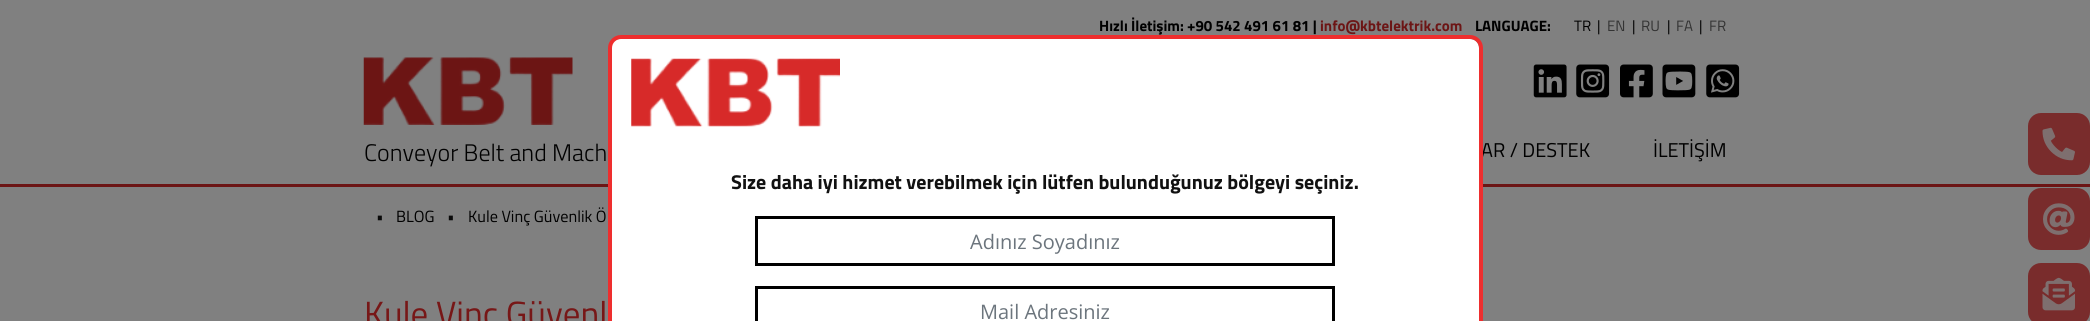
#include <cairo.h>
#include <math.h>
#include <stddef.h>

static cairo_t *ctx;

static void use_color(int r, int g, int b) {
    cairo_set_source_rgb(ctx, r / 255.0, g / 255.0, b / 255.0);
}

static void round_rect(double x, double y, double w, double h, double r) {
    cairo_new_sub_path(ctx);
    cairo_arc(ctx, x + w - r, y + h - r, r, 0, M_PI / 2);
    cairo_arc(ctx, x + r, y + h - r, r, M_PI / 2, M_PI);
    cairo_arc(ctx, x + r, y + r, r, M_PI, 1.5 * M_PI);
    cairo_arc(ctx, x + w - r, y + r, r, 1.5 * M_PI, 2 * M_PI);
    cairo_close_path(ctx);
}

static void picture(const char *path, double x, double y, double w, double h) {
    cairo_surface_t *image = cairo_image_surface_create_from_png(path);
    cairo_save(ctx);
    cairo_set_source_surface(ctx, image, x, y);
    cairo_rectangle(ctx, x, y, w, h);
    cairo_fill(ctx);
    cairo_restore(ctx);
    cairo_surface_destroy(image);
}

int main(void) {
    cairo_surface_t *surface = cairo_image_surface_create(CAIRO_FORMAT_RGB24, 2090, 321);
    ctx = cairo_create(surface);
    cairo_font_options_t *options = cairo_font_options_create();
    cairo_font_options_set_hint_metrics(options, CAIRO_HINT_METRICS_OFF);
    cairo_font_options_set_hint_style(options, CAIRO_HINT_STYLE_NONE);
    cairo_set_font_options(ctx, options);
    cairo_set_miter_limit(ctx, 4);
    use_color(128, 128, 128);
    cairo_paint(ctx);
    cairo_select_font_face(ctx, "Titillium Web", CAIRO_FONT_SLANT_NORMAL, CAIRO_FONT_WEIGHT_BOLD);
    cairo_set_font_size(ctx, 15);
    use_color(0, 0, 0);
    cairo_move_to(ctx, 1099, 31);
    cairo_show_text(ctx, "Hızlı İletişim: +90 542 491 61 81 |");
    use_color(108, 21, 21);
    cairo_move_to(ctx, 1320, 31);
    cairo_show_text(ctx, "info@kbtelektrik.com");
    use_color(0, 0, 0);
    cairo_move_to(ctx, 1475, 31);
    cairo_show_text(ctx, "LANGUAGE:");
    cairo_select_font_face(ctx, "Titillium Web", CAIRO_FONT_SLANT_NORMAL, CAIRO_FONT_WEIGHT_NORMAL);
    cairo_move_to(ctx, 1574, 31);
    cairo_show_text(ctx, "TR");
    cairo_move_to(ctx, 1597, 31);
    cairo_show_text(ctx, "|");
    use_color(51, 51, 51);
    cairo_move_to(ctx, 1607, 31);
    cairo_show_text(ctx, "EN");
    use_color(0, 0, 0);
    cairo_move_to(ctx, 1632, 31);
    cairo_show_text(ctx, "|");
    use_color(51, 51, 51);
    cairo_move_to(ctx, 1641, 31);
    cairo_show_text(ctx, "RU");
    use_color(0, 0, 0);
    cairo_move_to(ctx, 1667, 31);
    cairo_show_text(ctx, "|");
    use_color(51, 51, 51);
    cairo_move_to(ctx, 1676, 31);
    cairo_show_text(ctx, "FA");
    use_color(0, 0, 0);
    cairo_move_to(ctx, 1699, 31);
    cairo_show_text(ctx, "|");
    use_color(51, 51, 51);
    cairo_move_to(ctx, 1709, 31);
    cairo_show_text(ctx, "FR");
    use_color(108, 21, 21);
    cairo_rectangle(ctx, 0, 184, 2090, 3);
    cairo_fill(ctx);
    picture("img1.png", 363, 57, 210, 68);
    cairo_select_font_face(ctx, "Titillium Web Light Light", CAIRO_FONT_SLANT_NORMAL, CAIRO_FONT_WEIGHT_NORMAL);
    cairo_set_font_size(ctx, 24);
    use_color(0, 0, 0);
    cairo_move_to(ctx, 364, 161);
    cairo_show_text(ctx, "Conveyor Belt and Mach");
    picture("img2.png", 1533, 64, 34, 34);
    picture("img3.png", 1576, 64, 34, 34);
    picture("img4.png", 1620, 64, 33, 34);
    picture("img5.png", 1662, 64, 34, 34);
    picture("img6.png", 1706, 64, 34, 34);
    cairo_select_font_face(ctx, "Titillium Web", CAIRO_FONT_SLANT_NORMAL, CAIRO_FONT_WEIGHT_NORMAL);
    cairo_set_font_size(ctx, 20);
    cairo_move_to(ctx, 1481, 157);
    cairo_show_text(ctx, "AR / DESTEK");
    cairo_move_to(ctx, 1653, 157);
    cairo_show_text(ctx, "İLETİŞİM");
    use_color(121, 44, 44);
    round_rect(2028, 113, 62, 62, 13);
    cairo_fill(ctx);
    picture("img7.png", 2042, 127, 33, 34);
    round_rect(2028, 188, 62, 62, 13);
    cairo_fill(ctx);
    picture("img8.png", 2043, 203, 32, 32);
    round_rect(2028, 263, 62, 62, 13);
    cairo_fill(ctx);
    picture("img9.png", 2042, 277, 33, 34);
    cairo_set_font_size(ctx, 16.25);
    use_color(9, 9, 9);
    cairo_move_to(ctx, 376, 222);
    cairo_show_text(ctx, "•");
    use_color(0, 0, 0);
    cairo_move_to(ctx, 396, 222);
    cairo_show_text(ctx, "BLOG");
    use_color(9, 9, 9);
    cairo_move_to(ctx, 447, 222);
    cairo_show_text(ctx, "•");
    use_color(0, 0, 0);
    cairo_move_to(ctx, 468, 222);
    cairo_show_text(ctx, "Kule Vinç Güvenlik Ö");
    use_color(255, 255, 255);
    cairo_new_path(ctx);
    cairo_move_to(ctx, 620, 39);
    cairo_line_to(ctx, 1470, 39);
    cairo_curve_to(ctx, 1475, 39, 1479, 43, 1479, 48);
    cairo_line_to(ctx, 1479, 321);
    cairo_line_to(ctx, 611, 321);
    cairo_line_to(ctx, 611, 48);
    cairo_curve_to(ctx, 611, 43, 615, 39, 620, 39);
    cairo_close_path(ctx);
    cairo_fill(ctx);
    round_rect(610, 37, 871, 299, 11);
    use_color(238, 46, 46);
    cairo_set_line_width(ctx, 4);
    cairo_stroke(ctx);
    picture("img10.png", 631, 58, 209, 69);
    cairo_select_font_face(ctx, "Titillium Web", CAIRO_FONT_SLANT_NORMAL, CAIRO_FONT_WEIGHT_BOLD);
    cairo_set_font_size(ctx, 20);
    use_color(17, 17, 17);
    cairo_move_to(ctx, 731, 189);
    cairo_show_text(ctx, "Size daha iyi hizmet verebilmek için lütfen bulunduğunuz bölgeyi seçiniz.");
    cairo_rectangle(ctx, 756.5, 217.5, 577, 47);
    use_color(0, 0, 0);
    cairo_set_line_width(ctx, 3);
    cairo_stroke(ctx);
    cairo_select_font_face(ctx, "Open Sans", CAIRO_FONT_SLANT_NORMAL, CAIRO_FONT_WEIGHT_NORMAL);
    use_color(108, 117, 125);
    cairo_move_to(ctx, 970, 249);
    cairo_show_text(ctx, "Adınız Soyadınız");
    cairo_rectangle(ctx, 756.5, 287.5, 577, 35);
    use_color(0, 0, 0);
    cairo_stroke(ctx);
    use_color(108, 117, 125);
    cairo_move_to(ctx, 980, 319);
    cairo_show_text(ctx, "Mail Adresiniz");
    cairo_select_font_face(ctx, "Titillium Web", CAIRO_FONT_SLANT_NORMAL, CAIRO_FONT_WEIGHT_NORMAL);
    cairo_set_font_size(ctx, 35);
    use_color(119, 23, 23);
    cairo_move_to(ctx, 364, 326);
    cairo_show_text(ctx, "Kule Vinç Güvenl");
    cairo_surface_write_to_png(surface, "result.png");
    cairo_font_options_destroy(options);
    cairo_destroy(ctx);
    cairo_surface_destroy(surface);
    return 0;
}
